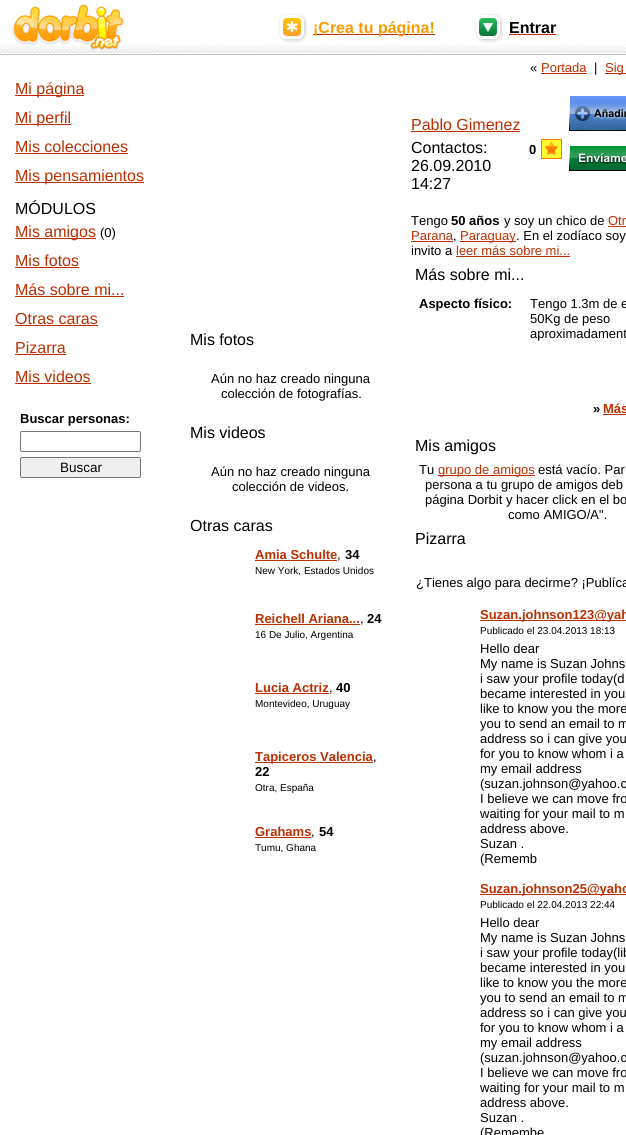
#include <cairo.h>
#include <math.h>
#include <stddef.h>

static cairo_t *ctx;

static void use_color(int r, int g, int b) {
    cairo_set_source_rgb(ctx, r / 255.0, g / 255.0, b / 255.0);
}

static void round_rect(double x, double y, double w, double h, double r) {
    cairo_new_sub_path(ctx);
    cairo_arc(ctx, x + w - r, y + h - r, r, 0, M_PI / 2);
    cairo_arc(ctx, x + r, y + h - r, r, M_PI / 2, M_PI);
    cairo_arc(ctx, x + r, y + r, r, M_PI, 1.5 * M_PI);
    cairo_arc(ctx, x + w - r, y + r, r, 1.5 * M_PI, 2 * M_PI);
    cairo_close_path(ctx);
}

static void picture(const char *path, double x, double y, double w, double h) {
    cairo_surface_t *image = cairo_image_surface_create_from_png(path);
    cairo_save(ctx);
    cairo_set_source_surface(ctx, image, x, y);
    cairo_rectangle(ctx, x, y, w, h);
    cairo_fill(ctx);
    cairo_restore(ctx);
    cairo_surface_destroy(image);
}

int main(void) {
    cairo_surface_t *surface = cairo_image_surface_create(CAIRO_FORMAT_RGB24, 626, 1135);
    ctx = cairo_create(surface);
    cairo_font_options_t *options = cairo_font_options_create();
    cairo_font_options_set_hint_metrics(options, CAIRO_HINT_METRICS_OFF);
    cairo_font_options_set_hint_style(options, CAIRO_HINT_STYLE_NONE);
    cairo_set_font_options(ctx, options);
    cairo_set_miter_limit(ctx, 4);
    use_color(255, 255, 255);
    cairo_paint(ctx);
    picture("img1.png", 157, 44, 469, 11);
    picture("img2.png", 0, 4, 157, 51);
    picture("img3.png", 278, 14, 29, 29);
    use_color(187, 47, 0);
    cairo_rectangle(ctx, 313, 34, 122, 1);
    cairo_fill(ctx);
    cairo_select_font_face(ctx, "Liberation Sans", CAIRO_FONT_SLANT_NORMAL, CAIRO_FONT_WEIGHT_BOLD);
    cairo_set_font_size(ctx, 16);
    use_color(255, 153, 0);
    cairo_move_to(ctx, 313, 33);
    cairo_show_text(ctx, "¡Crea tu página!");
    picture("img4.png", 474, 14, 29, 29);
    use_color(0, 0, 0);
    cairo_move_to(ctx, 509, 33);
    cairo_show_text(ctx, "Entrar");
    use_color(187, 47, 0);
    cairo_rectangle(ctx, 509, 34, 47, 1);
    cairo_fill(ctx);
    cairo_select_font_face(ctx, "Liberation Sans", CAIRO_FONT_SLANT_NORMAL, CAIRO_FONT_WEIGHT_NORMAL);
    cairo_set_font_size(ctx, 13);
    use_color(0, 0, 0);
    cairo_move_to(ctx, 530, 72);
    cairo_show_text(ctx, "«");
    use_color(187, 47, 0);
    cairo_move_to(ctx, 541, 72);
    cairo_show_text(ctx, "Portada");
    cairo_rectangle(ctx, 541, 73, 46, 1);
    cairo_fill(ctx);
    use_color(0, 0, 0);
    cairo_move_to(ctx, 594, 72);
    cairo_show_text(ctx, "|");
    use_color(187, 47, 0);
    cairo_rectangle(ctx, 605, 73, 21, 1);
    cairo_fill(ctx);
    cairo_move_to(ctx, 605, 72);
    cairo_show_text(ctx, "Sig");
    cairo_rectangle(ctx, 15, 95, 69, 1);
    cairo_fill(ctx);
    cairo_set_font_size(ctx, 16);
    cairo_move_to(ctx, 15, 94);
    cairo_show_text(ctx, "Mi página");
    cairo_rectangle(ctx, 15, 124, 56, 1);
    cairo_fill(ctx);
    cairo_move_to(ctx, 15, 123);
    cairo_show_text(ctx, "Mi perfil");
    cairo_move_to(ctx, 15, 152);
    cairo_show_text(ctx, "Mis colecciones");
    cairo_rectangle(ctx, 15, 153, 113, 1);
    cairo_fill(ctx);
    cairo_rectangle(ctx, 15, 182, 129, 1);
    cairo_fill(ctx);
    cairo_move_to(ctx, 15, 181);
    cairo_show_text(ctx, "Mis pensamientos");
    use_color(0, 0, 0);
    cairo_move_to(ctx, 15, 214);
    cairo_show_text(ctx, "MÓDULOS");
    use_color(187, 47, 0);
    cairo_rectangle(ctx, 15, 238, 81, 1);
    cairo_fill(ctx);
    cairo_move_to(ctx, 15, 237);
    cairo_show_text(ctx, "Mis amigos");
    cairo_set_font_size(ctx, 13);
    use_color(0, 0, 0);
    cairo_move_to(ctx, 100, 237);
    cairo_show_text(ctx, "(0)");
    cairo_set_font_size(ctx, 16);
    use_color(187, 47, 0);
    cairo_move_to(ctx, 15, 266);
    cairo_show_text(ctx, "Mis fotos");
    cairo_rectangle(ctx, 15, 267, 64, 1);
    cairo_fill(ctx);
    cairo_move_to(ctx, 15, 295);
    cairo_show_text(ctx, "Más sobre mi...");
    cairo_rectangle(ctx, 15, 296, 109, 1);
    cairo_fill(ctx);
    cairo_move_to(ctx, 15, 324);
    cairo_show_text(ctx, "Otras caras");
    cairo_rectangle(ctx, 15, 325, 83, 1);
    cairo_fill(ctx);
    cairo_move_to(ctx, 15, 353);
    cairo_show_text(ctx, "Pizarra");
    cairo_rectangle(ctx, 15, 354, 51, 1);
    cairo_fill(ctx);
    cairo_move_to(ctx, 15, 382);
    cairo_show_text(ctx, "Mis videos");
    cairo_rectangle(ctx, 15, 383, 76, 1);
    cairo_fill(ctx);
    cairo_select_font_face(ctx, "Liberation Sans", CAIRO_FONT_SLANT_NORMAL, CAIRO_FONT_WEIGHT_BOLD);
    cairo_set_font_size(ctx, 13);
    use_color(0, 0, 0);
    cairo_move_to(ctx, 20, 423);
    cairo_show_text(ctx, "Buscar personas:");
    round_rect(20.5, 431.5, 120, 20, 1.5);
    use_color(118, 118, 118);
    cairo_set_line_width(ctx, 1);
    cairo_stroke(ctx);
    use_color(239, 239, 239);
    round_rect(20.5, 457.5, 120, 20, 1.5);
    cairo_fill_preserve(ctx);
    use_color(118, 118, 118);
    cairo_stroke(ctx);
    cairo_select_font_face(ctx, "Liberation Sans", CAIRO_FONT_SLANT_NORMAL, CAIRO_FONT_WEIGHT_NORMAL);
    cairo_set_font_size(ctx, 13.5);
    use_color(0, 0, 0);
    cairo_move_to(ctx, 60, 472);
    cairo_show_text(ctx, "Buscar");
    cairo_set_font_size(ctx, 16);
    cairo_move_to(ctx, 190, 345);
    cairo_show_text(ctx, "Mis fotos");
    cairo_set_font_size(ctx, 13);
    cairo_move_to(ctx, 211, 383);
    cairo_show_text(ctx, "Aún no haz creado ninguna");
    cairo_move_to(ctx, 221, 398);
    cairo_show_text(ctx, "colección de fotografías.");
    cairo_set_font_size(ctx, 16);
    cairo_move_to(ctx, 190, 438);
    cairo_show_text(ctx, "Mis videos");
    cairo_set_font_size(ctx, 13);
    cairo_move_to(ctx, 211, 476);
    cairo_show_text(ctx, "Aún no haz creado ninguna");
    cairo_move_to(ctx, 232, 491);
    cairo_show_text(ctx, "colección de videos.");
    cairo_set_font_size(ctx, 16);
    cairo_move_to(ctx, 190, 531);
    cairo_show_text(ctx, "Otras caras");
    cairo_select_font_face(ctx, "Liberation Sans", CAIRO_FONT_SLANT_NORMAL, CAIRO_FONT_WEIGHT_BOLD);
    cairo_set_font_size(ctx, 13);
    use_color(187, 47, 0);
    cairo_move_to(ctx, 255, 559);
    cairo_show_text(ctx, "Amia Schulte");
    cairo_select_font_face(ctx, "Liberation Sans", CAIRO_FONT_SLANT_NORMAL, CAIRO_FONT_WEIGHT_NORMAL);
    use_color(0, 0, 0);
    cairo_move_to(ctx, 337, 559);
    cairo_show_text(ctx, ",");
    use_color(187, 47, 0);
    cairo_rectangle(ctx, 255, 560, 82, 1);
    cairo_fill(ctx);
    cairo_select_font_face(ctx, "Liberation Sans", CAIRO_FONT_SLANT_NORMAL, CAIRO_FONT_WEIGHT_BOLD);
    use_color(0, 0, 0);
    cairo_move_to(ctx, 345, 559);
    cairo_show_text(ctx, "34");
    cairo_select_font_face(ctx, "Liberation Sans", CAIRO_FONT_SLANT_NORMAL, CAIRO_FONT_WEIGHT_NORMAL);
    cairo_set_font_size(ctx, 10);
    cairo_move_to(ctx, 255, 574);
    cairo_show_text(ctx, "New York, Estados Unidos");
    cairo_select_font_face(ctx, "Liberation Sans", CAIRO_FONT_SLANT_NORMAL, CAIRO_FONT_WEIGHT_BOLD);
    cairo_set_font_size(ctx, 13);
    use_color(187, 47, 0);
    cairo_move_to(ctx, 255, 623);
    cairo_show_text(ctx, "Reichell Ariana...");
    cairo_select_font_face(ctx, "Liberation Sans", CAIRO_FONT_SLANT_NORMAL, CAIRO_FONT_WEIGHT_NORMAL);
    use_color(0, 0, 0);
    cairo_move_to(ctx, 360, 623);
    cairo_show_text(ctx, ",");
    use_color(187, 47, 0);
    cairo_rectangle(ctx, 255, 624, 105, 1);
    cairo_fill(ctx);
    cairo_select_font_face(ctx, "Liberation Sans", CAIRO_FONT_SLANT_NORMAL, CAIRO_FONT_WEIGHT_BOLD);
    use_color(0, 0, 0);
    cairo_move_to(ctx, 367, 623);
    cairo_show_text(ctx, "24");
    cairo_select_font_face(ctx, "Liberation Sans", CAIRO_FONT_SLANT_NORMAL, CAIRO_FONT_WEIGHT_NORMAL);
    cairo_set_font_size(ctx, 10);
    cairo_move_to(ctx, 255, 638);
    cairo_show_text(ctx, "16 De Julio, Argentina");
    cairo_select_font_face(ctx, "Liberation Sans", CAIRO_FONT_SLANT_NORMAL, CAIRO_FONT_WEIGHT_BOLD);
    cairo_set_font_size(ctx, 13);
    use_color(187, 47, 0);
    cairo_move_to(ctx, 255, 692);
    cairo_show_text(ctx, "Lucia Actriz");
    cairo_select_font_face(ctx, "Liberation Sans", CAIRO_FONT_SLANT_NORMAL, CAIRO_FONT_WEIGHT_NORMAL);
    use_color(0, 0, 0);
    cairo_move_to(ctx, 329, 692);
    cairo_show_text(ctx, ",");
    use_color(187, 47, 0);
    cairo_rectangle(ctx, 255, 693, 74, 1);
    cairo_fill(ctx);
    cairo_select_font_face(ctx, "Liberation Sans", CAIRO_FONT_SLANT_NORMAL, CAIRO_FONT_WEIGHT_BOLD);
    use_color(0, 0, 0);
    cairo_move_to(ctx, 336, 692);
    cairo_show_text(ctx, "40");
    cairo_select_font_face(ctx, "Liberation Sans", CAIRO_FONT_SLANT_NORMAL, CAIRO_FONT_WEIGHT_NORMAL);
    cairo_set_font_size(ctx, 10);
    cairo_move_to(ctx, 255, 707);
    cairo_show_text(ctx, "Montevideo, Uruguay");
    use_color(187, 47, 0);
    cairo_rectangle(ctx, 255, 762, 118, 1);
    cairo_fill(ctx);
    cairo_select_font_face(ctx, "Liberation Sans", CAIRO_FONT_SLANT_NORMAL, CAIRO_FONT_WEIGHT_BOLD);
    cairo_set_font_size(ctx, 13);
    cairo_move_to(ctx, 255, 761);
    cairo_show_text(ctx, "Tapiceros Valencia");
    cairo_select_font_face(ctx, "Liberation Sans", CAIRO_FONT_SLANT_NORMAL, CAIRO_FONT_WEIGHT_NORMAL);
    use_color(0, 0, 0);
    cairo_move_to(ctx, 373, 761);
    cairo_show_text(ctx, ",");
    cairo_select_font_face(ctx, "Liberation Sans", CAIRO_FONT_SLANT_NORMAL, CAIRO_FONT_WEIGHT_BOLD);
    cairo_move_to(ctx, 255, 776);
    cairo_show_text(ctx, "22");
    cairo_select_font_face(ctx, "Liberation Sans", CAIRO_FONT_SLANT_NORMAL, CAIRO_FONT_WEIGHT_NORMAL);
    cairo_set_font_size(ctx, 10);
    cairo_move_to(ctx, 255, 791);
    cairo_show_text(ctx, "Otra, España");
    cairo_select_font_face(ctx, "Liberation Sans", CAIRO_FONT_SLANT_NORMAL, CAIRO_FONT_WEIGHT_BOLD);
    cairo_set_font_size(ctx, 13);
    use_color(187, 47, 0);
    cairo_move_to(ctx, 255, 836);
    cairo_show_text(ctx, "Grahams");
    cairo_select_font_face(ctx, "Liberation Sans", CAIRO_FONT_SLANT_NORMAL, CAIRO_FONT_WEIGHT_NORMAL);
    use_color(0, 0, 0);
    cairo_move_to(ctx, 311, 836);
    cairo_show_text(ctx, ",");
    use_color(187, 47, 0);
    cairo_rectangle(ctx, 255, 837, 56, 1);
    cairo_fill(ctx);
    cairo_select_font_face(ctx, "Liberation Sans", CAIRO_FONT_SLANT_NORMAL, CAIRO_FONT_WEIGHT_BOLD);
    use_color(0, 0, 0);
    cairo_move_to(ctx, 319, 836);
    cairo_show_text(ctx, "54");
    cairo_select_font_face(ctx, "Liberation Sans", CAIRO_FONT_SLANT_NORMAL, CAIRO_FONT_WEIGHT_NORMAL);
    cairo_set_font_size(ctx, 10);
    cairo_move_to(ctx, 255, 851);
    cairo_show_text(ctx, "Tumu, Ghana");
    cairo_set_font_size(ctx, 16);
    use_color(187, 47, 0);
    cairo_move_to(ctx, 411, 130);
    cairo_show_text(ctx, "Pablo Gimenez");
    cairo_rectangle(ctx, 411, 131, 109, 1);
    cairo_fill(ctx);
    picture("img5.png", 569, 96, 57, 35);
    use_color(0, 0, 0);
    cairo_move_to(ctx, 411, 153);
    cairo_show_text(ctx, "Contactos:");
    cairo_move_to(ctx, 411, 171);
    cairo_show_text(ctx, "26.09.2010");
    cairo_move_to(ctx, 411, 189);
    cairo_show_text(ctx, "14:27");
    cairo_select_font_face(ctx, "Liberation Sans", CAIRO_FONT_SLANT_NORMAL, CAIRO_FONT_WEIGHT_BOLD);
    cairo_set_font_size(ctx, 13);
    cairo_move_to(ctx, 529, 154);
    cairo_show_text(ctx, "0");
    picture("img6.png", 541, 139, 21, 20);
    picture("img7.png", 569, 146, 57, 25);
    cairo_select_font_face(ctx, "Liberation Sans", CAIRO_FONT_SLANT_NORMAL, CAIRO_FONT_WEIGHT_NORMAL);
    cairo_move_to(ctx, 411, 225);
    cairo_show_text(ctx, "Tengo");
    cairo_select_font_face(ctx, "Liberation Sans", CAIRO_FONT_SLANT_NORMAL, CAIRO_FONT_WEIGHT_BOLD);
    cairo_move_to(ctx, 451, 225);
    cairo_show_text(ctx, "50 años");
    cairo_select_font_face(ctx, "Liberation Sans", CAIRO_FONT_SLANT_NORMAL, CAIRO_FONT_WEIGHT_NORMAL);
    cairo_move_to(ctx, 504, 225);
    cairo_show_text(ctx, "y soy un chico de");
    use_color(187, 47, 0);
    cairo_move_to(ctx, 608, 225);
    cairo_show_text(ctx, "Otr");
    cairo_rectangle(ctx, 608, 226, 18, 1);
    cairo_fill(ctx);
    cairo_move_to(ctx, 411, 240);
    cairo_show_text(ctx, "Parana");
    use_color(0, 0, 0);
    cairo_move_to(ctx, 453, 240);
    cairo_show_text(ctx, ",");
    use_color(187, 47, 0);
    cairo_rectangle(ctx, 411, 241, 42, 1);
    cairo_fill(ctx);
    cairo_rectangle(ctx, 460, 241, 56, 1);
    cairo_fill(ctx);
    cairo_move_to(ctx, 460, 240);
    cairo_show_text(ctx, "Paraguay");
    use_color(0, 0, 0);
    cairo_move_to(ctx, 516, 240);
    cairo_show_text(ctx, ". En el zodíaco soy");
    cairo_move_to(ctx, 411, 255);
    cairo_show_text(ctx, "invito a");
    use_color(187, 47, 0);
    cairo_move_to(ctx, 456, 255);
    cairo_show_text(ctx, "leer más sobre mi...");
    cairo_rectangle(ctx, 456, 256, 114, 1);
    cairo_fill(ctx);
    cairo_set_font_size(ctx, 16);
    use_color(0, 0, 0);
    cairo_move_to(ctx, 415, 280);
    cairo_show_text(ctx, "Más sobre mi...");
    cairo_select_font_face(ctx, "Liberation Sans", CAIRO_FONT_SLANT_NORMAL, CAIRO_FONT_WEIGHT_BOLD);
    cairo_set_font_size(ctx, 13);
    cairo_move_to(ctx, 419, 308);
    cairo_show_text(ctx, "Aspecto físico:");
    cairo_select_font_face(ctx, "Liberation Sans", CAIRO_FONT_SLANT_NORMAL, CAIRO_FONT_WEIGHT_NORMAL);
    cairo_move_to(ctx, 530, 308);
    cairo_show_text(ctx, "Tengo 1.3m de e");
    cairo_move_to(ctx, 530, 323);
    cairo_show_text(ctx, "50Kg de peso");
    cairo_move_to(ctx, 530, 338);
    cairo_show_text(ctx, "aproximadament");
    cairo_select_font_face(ctx, "Liberation Sans", CAIRO_FONT_SLANT_NORMAL, CAIRO_FONT_WEIGHT_BOLD);
    cairo_move_to(ctx, 593, 413);
    cairo_show_text(ctx, "»");
    use_color(187, 47, 0);
    cairo_rectangle(ctx, 603, 414, 23, 1);
    cairo_fill(ctx);
    cairo_move_to(ctx, 603, 413);
    cairo_show_text(ctx, "Más");
    cairo_select_font_face(ctx, "Liberation Sans", CAIRO_FONT_SLANT_NORMAL, CAIRO_FONT_WEIGHT_NORMAL);
    cairo_set_font_size(ctx, 16);
    use_color(0, 0, 0);
    cairo_move_to(ctx, 415, 451);
    cairo_show_text(ctx, "Mis amigos");
    cairo_set_font_size(ctx, 13);
    cairo_move_to(ctx, 419, 474);
    cairo_show_text(ctx, "Tu");
    use_color(187, 47, 0);
    cairo_rectangle(ctx, 438, 475, 97, 1);
    cairo_fill(ctx);
    cairo_move_to(ctx, 438, 474);
    cairo_show_text(ctx, "grupo de amigos");
    use_color(0, 0, 0);
    cairo_move_to(ctx, 538, 474);
    cairo_show_text(ctx, "está vacío. Par");
    cairo_move_to(ctx, 425, 489);
    cairo_show_text(ctx, "persona a tu grupo de amigos deb");
    cairo_move_to(ctx, 425, 504);
    cairo_show_text(ctx, "página Dorbit y hacer click en el bo");
    cairo_move_to(ctx, 508, 519);
    cairo_show_text(ctx, "como AMIGO/A\".");
    cairo_set_font_size(ctx, 16);
    cairo_move_to(ctx, 415, 544);
    cairo_show_text(ctx, "Pizarra");
    cairo_set_font_size(ctx, 13);
    cairo_move_to(ctx, 416, 587);
    cairo_show_text(ctx, "¿Tienes algo para decirme? ¡Publíca");
    use_color(187, 47, 0);
    cairo_rectangle(ctx, 480, 620, 146, 1);
    cairo_fill(ctx);
    cairo_select_font_face(ctx, "Liberation Sans", CAIRO_FONT_SLANT_NORMAL, CAIRO_FONT_WEIGHT_BOLD);
    cairo_move_to(ctx, 480, 619);
    cairo_show_text(ctx, "Suzan.johnson123@yah");
    cairo_select_font_face(ctx, "Liberation Sans", CAIRO_FONT_SLANT_NORMAL, CAIRO_FONT_WEIGHT_NORMAL);
    cairo_set_font_size(ctx, 10);
    use_color(0, 0, 0);
    cairo_move_to(ctx, 480, 634);
    cairo_show_text(ctx, "Publicado el 23.04.2013 18:13");
    cairo_set_font_size(ctx, 13);
    cairo_move_to(ctx, 480, 653);
    cairo_show_text(ctx, "Hello dear");
    cairo_move_to(ctx, 480, 668);
    cairo_show_text(ctx, "My name is Suzan Johns");
    cairo_move_to(ctx, 480, 683);
    cairo_show_text(ctx, "i saw your profile today(d");
    cairo_move_to(ctx, 480, 698);
    cairo_show_text(ctx, "became interested in you");
    cairo_move_to(ctx, 480, 713);
    cairo_show_text(ctx, "like to know you the more");
    cairo_move_to(ctx, 480, 728);
    cairo_show_text(ctx, "you to send an email to m");
    cairo_move_to(ctx, 480, 743);
    cairo_show_text(ctx, "address so i can give you");
    cairo_move_to(ctx, 480, 758);
    cairo_show_text(ctx, "for you to know whom i a");
    cairo_move_to(ctx, 480, 773);
    cairo_show_text(ctx, "my email address");
    cairo_move_to(ctx, 480, 788);
    cairo_show_text(ctx, "(suzan.johnson@yahoo.c");
    cairo_move_to(ctx, 480, 803);
    cairo_show_text(ctx, "I believe we can move fro");
    cairo_move_to(ctx, 480, 818);
    cairo_show_text(ctx, "waiting for your mail to m");
    cairo_move_to(ctx, 480, 833);
    cairo_show_text(ctx, "address above.");
    cairo_move_to(ctx, 480, 848);
    cairo_show_text(ctx, "Suzan .");
    cairo_move_to(ctx, 480, 863);
    cairo_show_text(ctx, "(Rememb");
    use_color(187, 47, 0);
    cairo_rectangle(ctx, 480, 894, 146, 1);
    cairo_fill(ctx);
    cairo_select_font_face(ctx, "Liberation Sans", CAIRO_FONT_SLANT_NORMAL, CAIRO_FONT_WEIGHT_BOLD);
    cairo_move_to(ctx, 480, 893);
    cairo_show_text(ctx, "Suzan.johnson25@yaho");
    cairo_select_font_face(ctx, "Liberation Sans", CAIRO_FONT_SLANT_NORMAL, CAIRO_FONT_WEIGHT_NORMAL);
    cairo_set_font_size(ctx, 10);
    use_color(0, 0, 0);
    cairo_move_to(ctx, 480, 908);
    cairo_show_text(ctx, "Publicado el 22.04.2013 22:44");
    cairo_set_font_size(ctx, 13);
    cairo_move_to(ctx, 480, 927);
    cairo_show_text(ctx, "Hello dear");
    cairo_move_to(ctx, 480, 942);
    cairo_show_text(ctx, "My name is Suzan Johns");
    cairo_move_to(ctx, 480, 957);
    cairo_show_text(ctx, "i saw your profile today(lib");
    cairo_move_to(ctx, 480, 972);
    cairo_show_text(ctx, "became interested in you");
    cairo_move_to(ctx, 480, 987);
    cairo_show_text(ctx, "like to know you the more");
    cairo_move_to(ctx, 480, 1002);
    cairo_show_text(ctx, "you to send an email to m");
    cairo_move_to(ctx, 480, 1017);
    cairo_show_text(ctx, "address so i can give you");
    cairo_move_to(ctx, 480, 1032);
    cairo_show_text(ctx, "for you to know whom i a");
    cairo_move_to(ctx, 480, 1047);
    cairo_show_text(ctx, "my email address");
    cairo_move_to(ctx, 480, 1062);
    cairo_show_text(ctx, "(suzan.johnson@yahoo.c");
    cairo_move_to(ctx, 480, 1077);
    cairo_show_text(ctx, "I believe we can move fro");
    cairo_move_to(ctx, 480, 1092);
    cairo_show_text(ctx, "waiting for your mail to m");
    cairo_move_to(ctx, 480, 1107);
    cairo_show_text(ctx, "address above.");
    cairo_move_to(ctx, 480, 1122);
    cairo_show_text(ctx, "Suzan .");
    cairo_move_to(ctx, 480, 1137);
    cairo_show_text(ctx, "(Remembe");
    cairo_surface_write_to_png(surface, "result.png");
    cairo_font_options_destroy(options);
    cairo_destroy(ctx);
    cairo_surface_destroy(surface);
    return 0;
}
